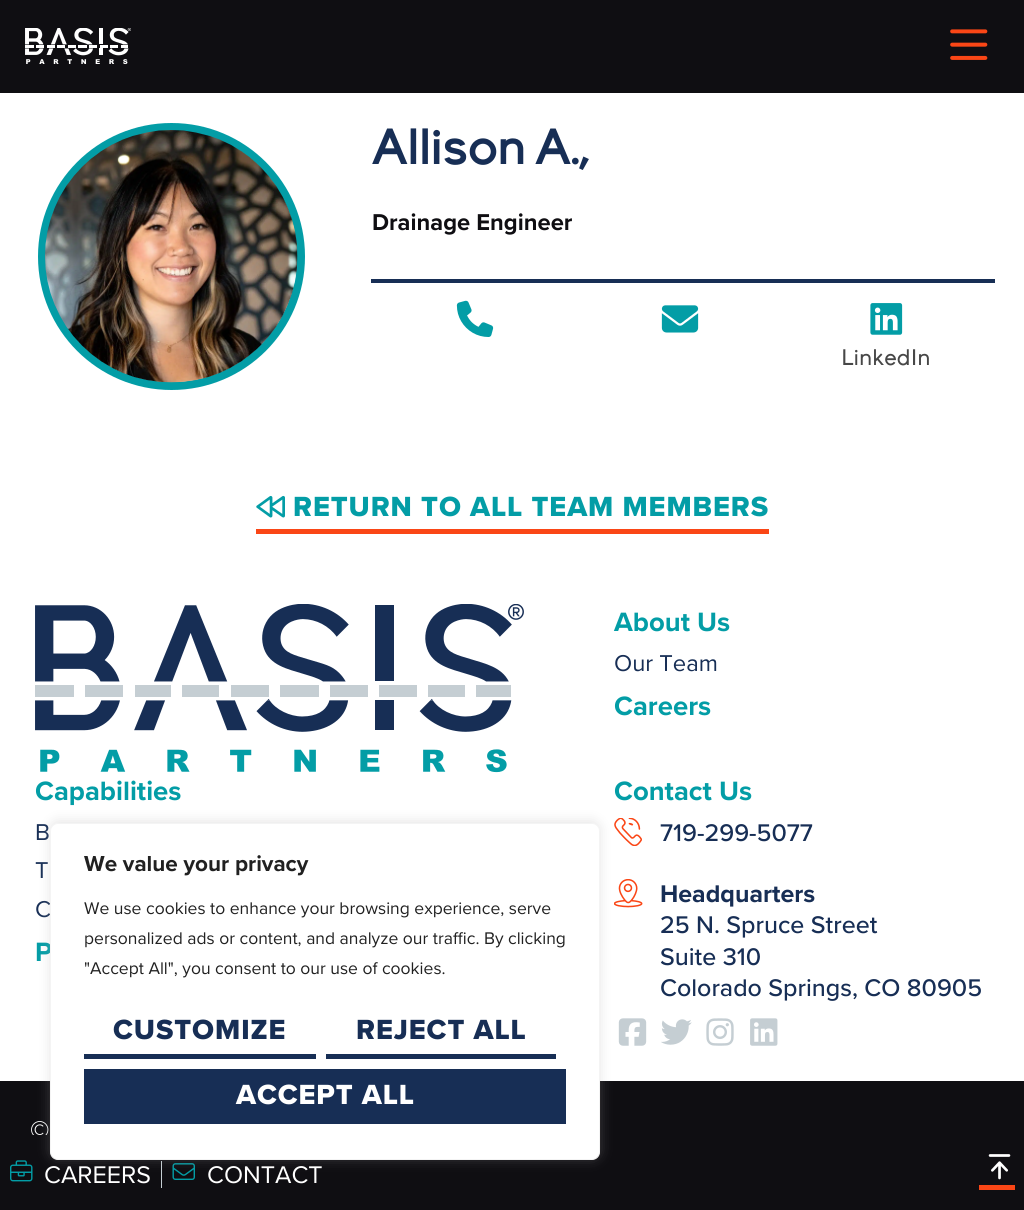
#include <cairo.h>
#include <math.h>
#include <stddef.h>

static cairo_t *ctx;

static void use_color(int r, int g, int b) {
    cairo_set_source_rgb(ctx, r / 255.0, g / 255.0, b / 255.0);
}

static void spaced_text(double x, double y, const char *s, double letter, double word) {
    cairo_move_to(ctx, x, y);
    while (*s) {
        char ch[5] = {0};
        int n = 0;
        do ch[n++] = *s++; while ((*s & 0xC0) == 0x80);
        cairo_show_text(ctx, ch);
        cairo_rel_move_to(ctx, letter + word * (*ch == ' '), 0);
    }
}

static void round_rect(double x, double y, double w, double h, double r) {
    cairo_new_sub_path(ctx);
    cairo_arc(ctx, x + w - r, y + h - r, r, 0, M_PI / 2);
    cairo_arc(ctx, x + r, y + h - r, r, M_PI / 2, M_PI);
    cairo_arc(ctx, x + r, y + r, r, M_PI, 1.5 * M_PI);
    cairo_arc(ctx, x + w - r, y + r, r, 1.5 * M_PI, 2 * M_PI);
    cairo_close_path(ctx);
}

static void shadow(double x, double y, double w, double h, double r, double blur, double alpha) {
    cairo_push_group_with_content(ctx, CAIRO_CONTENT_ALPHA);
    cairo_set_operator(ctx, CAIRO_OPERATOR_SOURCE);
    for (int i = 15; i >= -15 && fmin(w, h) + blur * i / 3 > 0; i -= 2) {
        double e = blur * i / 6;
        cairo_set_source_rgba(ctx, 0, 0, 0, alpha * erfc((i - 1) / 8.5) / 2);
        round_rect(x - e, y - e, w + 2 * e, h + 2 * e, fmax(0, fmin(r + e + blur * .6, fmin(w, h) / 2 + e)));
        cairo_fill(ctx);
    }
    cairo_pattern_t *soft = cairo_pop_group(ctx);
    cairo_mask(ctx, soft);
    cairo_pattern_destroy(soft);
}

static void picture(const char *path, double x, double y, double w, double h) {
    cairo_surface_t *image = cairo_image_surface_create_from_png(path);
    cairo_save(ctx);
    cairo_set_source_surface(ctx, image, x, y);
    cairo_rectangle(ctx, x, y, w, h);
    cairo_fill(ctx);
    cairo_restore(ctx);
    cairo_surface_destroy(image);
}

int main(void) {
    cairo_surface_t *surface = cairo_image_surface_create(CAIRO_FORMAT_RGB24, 1024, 1210);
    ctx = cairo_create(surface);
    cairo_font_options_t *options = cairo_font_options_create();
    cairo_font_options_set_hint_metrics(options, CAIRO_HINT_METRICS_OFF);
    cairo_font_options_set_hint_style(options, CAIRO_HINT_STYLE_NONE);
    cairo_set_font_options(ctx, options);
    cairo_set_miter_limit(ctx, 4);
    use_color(255, 255, 255);
    cairo_paint(ctx);
    use_color(15, 14, 18);
    cairo_rectangle(ctx, 0, 0, 1024, 93);
    cairo_fill(ctx);
    picture("img1.png", 25, 28, 106, 37);
    picture("img2.png", 950, 29, 38, 31);
    cairo_arc(ctx, 171.5, 256.5, 129.5, 0, 2 * M_PI);
    use_color(3, 157, 166);
    cairo_set_line_width(ctx, 8);
    cairo_stroke(ctx);
    picture("img3.png", 45, 130, 253, 253);
    cairo_select_font_face(ctx, "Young", CAIRO_FONT_SLANT_NORMAL, CAIRO_FONT_WEIGHT_BOLD);
    cairo_set_font_size(ctx, 48.75);
    use_color(23, 46, 85);
    cairo_move_to(ctx, 372, 164);
    cairo_show_text(ctx, "Allison A.,");
    cairo_select_font_face(ctx, "Proxima Nova", CAIRO_FONT_SLANT_NORMAL, CAIRO_FONT_WEIGHT_BOLD);
    cairo_set_font_size(ctx, 23.75);
    use_color(15, 14, 18);
    cairo_move_to(ctx, 372, 230);
    cairo_show_text(ctx, "Drainage Engineer");
    use_color(23, 46, 85);
    cairo_rectangle(ctx, 371, 279, 624, 4);
    cairo_fill(ctx);
    picture("img4.png", 456, 300, 38, 37);
    picture("img5.png", 661, 305, 38, 28);
    picture("img6.png", 870, 303, 33, 32);
    cairo_select_font_face(ctx, "Young", CAIRO_FONT_SLANT_NORMAL, CAIRO_FONT_WEIGHT_NORMAL);
    cairo_set_font_size(ctx, 22.5);
    use_color(71, 71, 71);
    cairo_move_to(ctx, 841, 365);
    cairo_show_text(ctx, "LinkedIn");
    use_color(250, 70, 22);
    cairo_rectangle(ctx, 256, 529, 513, 5);
    cairo_fill(ctx);
    picture("img7.png", 256, 495, 29, 23);
    cairo_select_font_face(ctx, "Proxima Nova ExtraBold", CAIRO_FONT_SLANT_NORMAL, CAIRO_FONT_WEIGHT_NORMAL);
    cairo_set_font_size(ctx, 28.75);
    use_color(3, 157, 166);
    spaced_text(293, 516, "RETURN TO ALL TEAM MEMBERS", 0.9, 0);
    picture("img8.png", 35, 604, 489, 169);
    cairo_select_font_face(ctx, "Proxima Nova", CAIRO_FONT_SLANT_NORMAL, CAIRO_FONT_WEIGHT_BOLD);
    cairo_set_font_size(ctx, 27.5);
    cairo_move_to(ctx, 614, 631);
    cairo_show_text(ctx, "About Us");
    cairo_select_font_face(ctx, "Proxima Nova", CAIRO_FONT_SLANT_NORMAL, CAIRO_FONT_WEIGHT_NORMAL);
    cairo_set_font_size(ctx, 23.75);
    use_color(23, 46, 85);
    cairo_move_to(ctx, 614, 671);
    cairo_show_text(ctx, "Our Team");
    cairo_select_font_face(ctx, "Proxima Nova", CAIRO_FONT_SLANT_NORMAL, CAIRO_FONT_WEIGHT_BOLD);
    cairo_set_font_size(ctx, 27.5);
    use_color(3, 157, 166);
    cairo_move_to(ctx, 614, 715);
    cairo_show_text(ctx, "Careers");
    cairo_move_to(ctx, 35, 800);
    cairo_show_text(ctx, "Capabilities");
    cairo_select_font_face(ctx, "Proxima Nova", CAIRO_FONT_SLANT_NORMAL, CAIRO_FONT_WEIGHT_NORMAL);
    cairo_set_font_size(ctx, 23.75);
    use_color(23, 46, 85);
    cairo_move_to(ctx, 35, 840);
    cairo_show_text(ctx, "B");
    cairo_move_to(ctx, 35, 878);
    cairo_show_text(ctx, "T");
    cairo_move_to(ctx, 35, 917);
    cairo_show_text(ctx, "C");
    cairo_select_font_face(ctx, "Proxima Nova", CAIRO_FONT_SLANT_NORMAL, CAIRO_FONT_WEIGHT_BOLD);
    cairo_set_font_size(ctx, 27.5);
    use_color(3, 157, 166);
    cairo_move_to(ctx, 35, 961);
    cairo_show_text(ctx, "P");
    cairo_move_to(ctx, 614, 800);
    cairo_show_text(ctx, "Contact Us");
    picture("img9.png", 614, 818, 28, 28);
    cairo_select_font_face(ctx, "Proxima Nova Medium", CAIRO_FONT_SLANT_NORMAL, CAIRO_FONT_WEIGHT_NORMAL);
    cairo_set_font_size(ctx, 25);
    use_color(23, 46, 85);
    cairo_move_to(ctx, 660, 841);
    cairo_show_text(ctx, "719-299-5077");
    picture("img10.png", 614, 879, 29, 29);
    cairo_select_font_face(ctx, "Proxima Nova", CAIRO_FONT_SLANT_NORMAL, CAIRO_FONT_WEIGHT_BOLD);
    cairo_move_to(ctx, 660, 902);
    cairo_show_text(ctx, "Headquarters");
    cairo_select_font_face(ctx, "Proxima Nova Medium", CAIRO_FONT_SLANT_NORMAL, CAIRO_FONT_WEIGHT_NORMAL);
    cairo_move_to(ctx, 660, 933);
    cairo_show_text(ctx, "25 N. Spruce Street");
    cairo_move_to(ctx, 660, 965);
    cairo_show_text(ctx, "Suite 310");
    cairo_move_to(ctx, 660, 996);
    cairo_show_text(ctx, "Colorado Springs, CO 80905");
    picture("img11.png", 618, 1018, 29, 28);
    picture("img12.png", 661, 1019, 31, 26);
    picture("img13.png", 706, 1018, 28, 28);
    picture("img14.png", 750, 1018, 28, 28);
    use_color(15, 14, 18);
    cairo_rectangle(ctx, 0, 1081, 1024, 54);
    cairo_fill(ctx);
    cairo_select_font_face(ctx, "Proxima Nova SemiBold", CAIRO_FONT_SLANT_NORMAL, CAIRO_FONT_WEIGHT_NORMAL);
    use_color(255, 255, 255);
    cairo_move_to(ctx, 30, 1138);
    cairo_show_text(ctx, "©");
    use_color(15, 14, 18);
    cairo_rectangle(ctx, 0, 1135, 1024, 75);
    cairo_fill(ctx);
    picture("img15.png", 10, 1160, 23, 22);
    use_color(197, 206, 211);
    cairo_rectangle(ctx, 161, 1161, 1, 27);
    cairo_fill(ctx);
    picture("img16.png", 172, 1163, 23, 17);
    use_color(172, 171, 171);
    shadow(50, 821, 550, 338, 8, 6, 0.3);
    use_color(255, 255, 255);
    round_rect(50.5, 823.5, 549, 336, 7.5);
    cairo_fill_preserve(ctx);
    use_color(244, 244, 244);
    cairo_set_line_width(ctx, 1);
    cairo_stroke(ctx);
    cairo_select_font_face(ctx, "Proxima Nova", CAIRO_FONT_SLANT_NORMAL, CAIRO_FONT_WEIGHT_BOLD);
    cairo_set_font_size(ctx, 22.5);
    use_color(33, 33, 33);
    cairo_move_to(ctx, 84, 871);
    cairo_show_text(ctx, "We value your privacy");
    cairo_select_font_face(ctx, "Proxima Nova", CAIRO_FONT_SLANT_NORMAL, CAIRO_FONT_WEIGHT_NORMAL);
    cairo_set_font_size(ctx, 17.5);
    cairo_move_to(ctx, 84, 914);
    cairo_show_text(ctx, "We use cookies to enhance your browsing experience, serve");
    cairo_move_to(ctx, 84, 944);
    cairo_show_text(ctx, "personalized ads or content, and analyze our traffic. By clicking");
    cairo_move_to(ctx, 84, 974);
    cairo_show_text(ctx, "\"Accept All\", you consent to our use of cookies.");
    use_color(23, 46, 85);
    cairo_rectangle(ctx, 84, 1054, 232, 5);
    cairo_fill(ctx);
    cairo_select_font_face(ctx, "Proxima Nova ExtraBold", CAIRO_FONT_SLANT_NORMAL, CAIRO_FONT_WEIGHT_NORMAL);
    cairo_set_font_size(ctx, 28.75);
    spaced_text(113, 1039, "CUSTOMIZE", 0.9, 0);
    cairo_rectangle(ctx, 326, 1054, 230, 5);
    cairo_fill(ctx);
    spaced_text(356, 1039, "REJECT ALL", 0.9, 0);
    cairo_rectangle(ctx, 84, 1069, 482, 55);
    cairo_fill(ctx);
    use_color(255, 255, 255);
    spaced_text(236, 1104, "ACCEPT ALL", 0.9, 0);
    cairo_select_font_face(ctx, "Proxima Nova", CAIRO_FONT_SLANT_NORMAL, CAIRO_FONT_WEIGHT_NORMAL);
    cairo_set_font_size(ctx, 25);
    cairo_move_to(ctx, 44, 1183);
    cairo_show_text(ctx, "CAREERS");
    cairo_move_to(ctx, 207, 1183);
    cairo_show_text(ctx, "CONTACT");
    use_color(250, 70, 22);
    cairo_rectangle(ctx, 979, 1185, 36, 5);
    cairo_fill(ctx);
    picture("img17.png", 988, 1154, 23, 26);
    cairo_surface_write_to_png(surface, "result.png");
    cairo_font_options_destroy(options);
    cairo_destroy(ctx);
    cairo_surface_destroy(surface);
    return 0;
}
